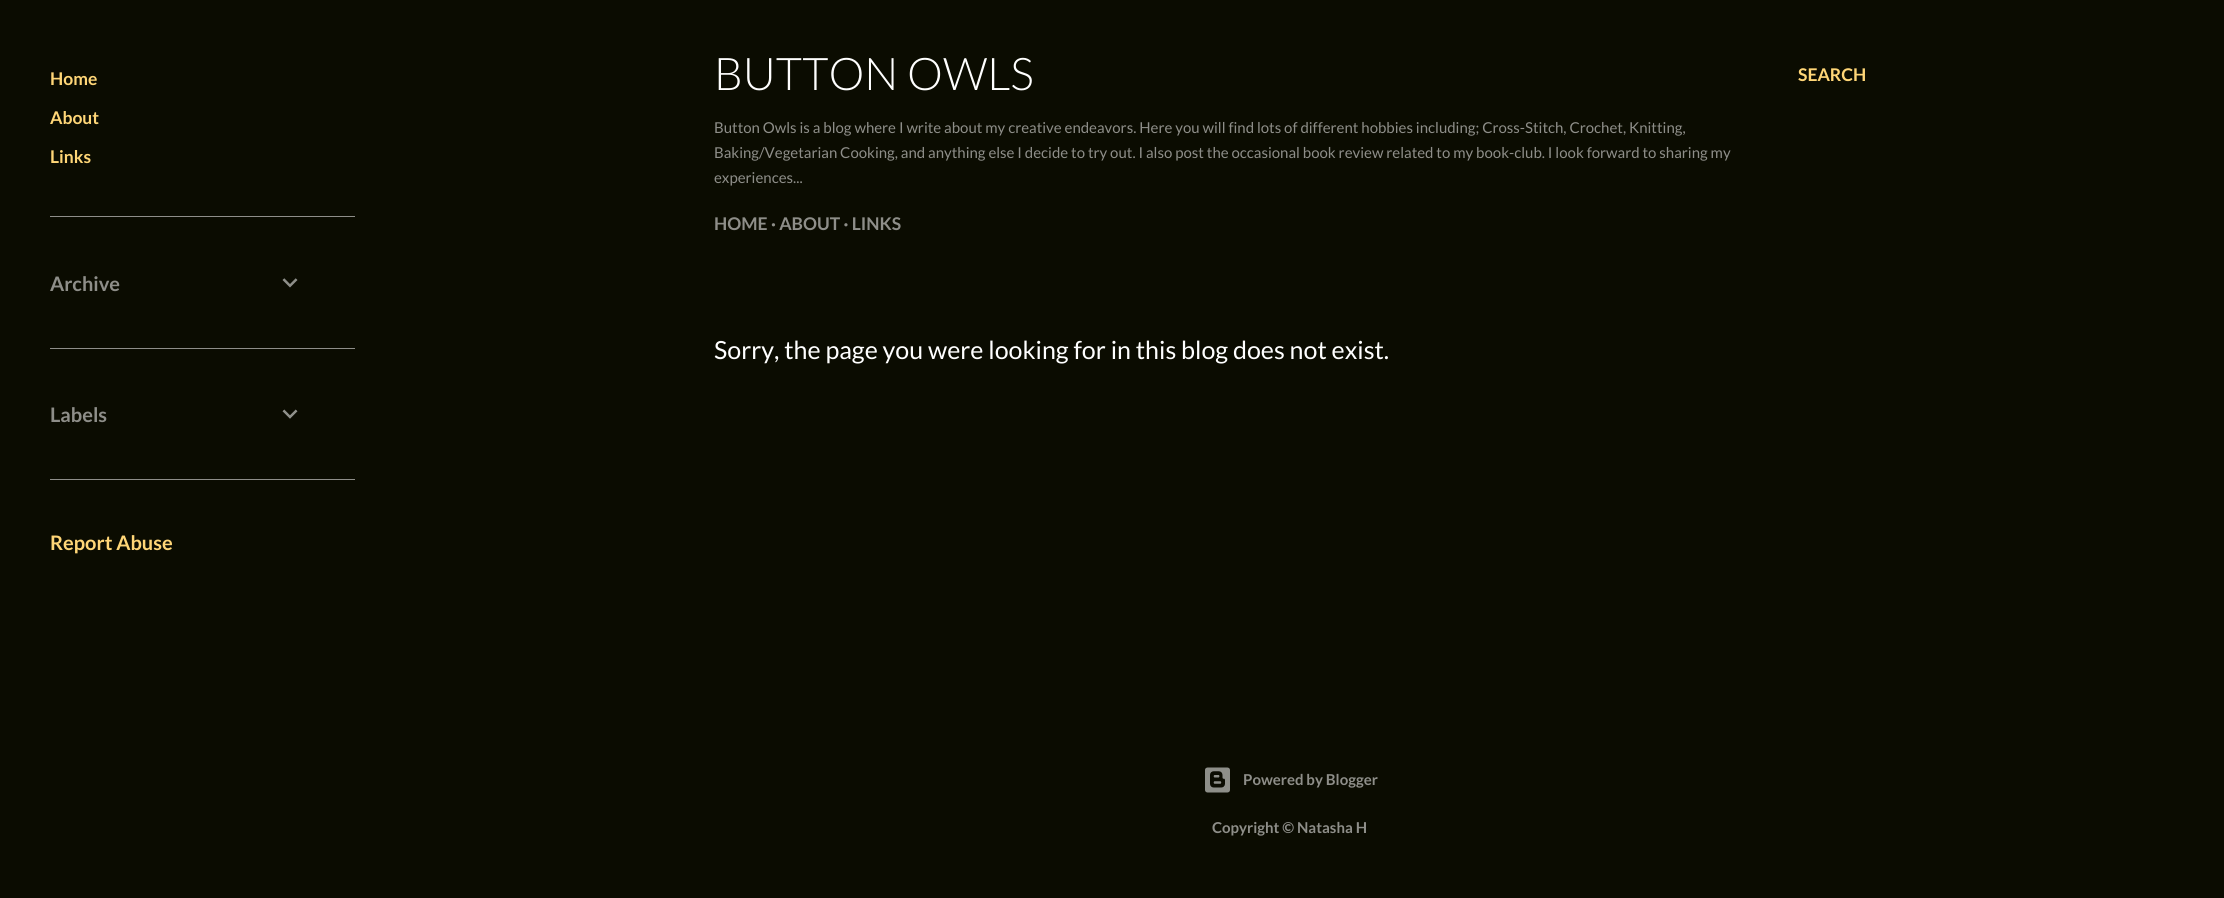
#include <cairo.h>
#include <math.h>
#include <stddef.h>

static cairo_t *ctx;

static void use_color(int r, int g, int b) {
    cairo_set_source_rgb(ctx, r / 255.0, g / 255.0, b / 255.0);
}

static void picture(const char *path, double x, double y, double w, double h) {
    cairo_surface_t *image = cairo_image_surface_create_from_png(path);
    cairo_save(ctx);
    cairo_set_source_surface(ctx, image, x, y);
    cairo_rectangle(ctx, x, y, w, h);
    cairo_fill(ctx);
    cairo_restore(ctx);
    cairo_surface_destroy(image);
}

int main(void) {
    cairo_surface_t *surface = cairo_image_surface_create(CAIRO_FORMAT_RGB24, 2224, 898);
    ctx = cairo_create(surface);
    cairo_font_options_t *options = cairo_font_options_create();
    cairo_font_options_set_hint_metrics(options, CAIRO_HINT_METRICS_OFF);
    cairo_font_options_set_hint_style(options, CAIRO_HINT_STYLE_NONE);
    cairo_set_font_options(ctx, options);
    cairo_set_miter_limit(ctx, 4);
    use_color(11, 12, 1);
    cairo_paint(ctx);
    cairo_select_font_face(ctx, "Lato", CAIRO_FONT_SLANT_NORMAL, CAIRO_FONT_WEIGHT_BOLD);
    cairo_set_font_size(ctx, 17.5);
    use_color(255, 214, 119);
    cairo_move_to(ctx, 50, 85);
    cairo_show_text(ctx, "Home");
    cairo_move_to(ctx, 50, 124);
    cairo_show_text(ctx, "About");
    cairo_move_to(ctx, 50, 163);
    cairo_show_text(ctx, "Links");
    use_color(142, 142, 137);
    cairo_rectangle(ctx, 50, 216, 305, 1);
    cairo_fill(ctx);
    cairo_set_font_size(ctx, 20);
    cairo_move_to(ctx, 50, 291);
    cairo_show_text(ctx, "Archive");
    picture("img1.png", 282, 278, 16, 10);
    cairo_rectangle(ctx, 50, 348, 305, 1);
    cairo_fill(ctx);
    cairo_move_to(ctx, 50, 422);
    cairo_show_text(ctx, "Labels");
    picture("img2.png", 282, 409, 16, 10);
    cairo_rectangle(ctx, 50, 479, 305, 1);
    cairo_fill(ctx);
    use_color(255, 214, 119);
    cairo_move_to(ctx, 50, 550);
    cairo_show_text(ctx, "Report Abuse");
    cairo_select_font_face(ctx, "Lato Light", CAIRO_FONT_SLANT_NORMAL, CAIRO_FONT_WEIGHT_NORMAL);
    cairo_set_font_size(ctx, 45);
    use_color(255, 255, 255);
    cairo_move_to(ctx, 714, 90);
    cairo_show_text(ctx, "BUTTON OWLS");
    cairo_select_font_face(ctx, "Lato", CAIRO_FONT_SLANT_NORMAL, CAIRO_FONT_WEIGHT_NORMAL);
    cairo_set_font_size(ctx, 15);
    use_color(142, 142, 137);
    cairo_move_to(ctx, 714, 133);
    cairo_show_text(ctx, "Button Owls is a blog where I write about my creative endeavors. Here you will find lots of different hobbies including; Cross-Stitch, Crochet, Knitting,");
    cairo_move_to(ctx, 714, 158);
    cairo_show_text(ctx, "Baking/Vegetarian Cooking, and anything else I decide to try out. I also post the occasional book review related to my book-club. I look forward to sharing my");
    cairo_move_to(ctx, 714, 183);
    cairo_show_text(ctx, "experiences...");
    cairo_select_font_face(ctx, "Lato", CAIRO_FONT_SLANT_NORMAL, CAIRO_FONT_WEIGHT_BOLD);
    cairo_set_font_size(ctx, 17.5);
    cairo_move_to(ctx, 714, 230);
    cairo_show_text(ctx, "HOME · ABOUT · LINKS");
    use_color(255, 214, 119);
    cairo_move_to(ctx, 1798, 81);
    cairo_show_text(ctx, "SEARCH");
    cairo_select_font_face(ctx, "Lato", CAIRO_FONT_SLANT_NORMAL, CAIRO_FONT_WEIGHT_NORMAL);
    cairo_set_font_size(ctx, 25);
    use_color(255, 255, 255);
    cairo_move_to(ctx, 714, 359);
    cairo_show_text(ctx, "Sorry, the page you were looking for in this blog does not exist.");
    picture("img3.png", 1205, 767, 25, 26);
    cairo_select_font_face(ctx, "Lato", CAIRO_FONT_SLANT_NORMAL, CAIRO_FONT_WEIGHT_BOLD);
    cairo_set_font_size(ctx, 15);
    use_color(142, 142, 137);
    cairo_move_to(ctx, 1243, 785);
    cairo_show_text(ctx, "Powered by Blogger");
    cairo_move_to(ctx, 1212, 833);
    cairo_show_text(ctx, "Copyright © Natasha H");
    cairo_surface_write_to_png(surface, "result.png");
    cairo_font_options_destroy(options);
    cairo_destroy(ctx);
    cairo_surface_destroy(surface);
    return 0;
}
